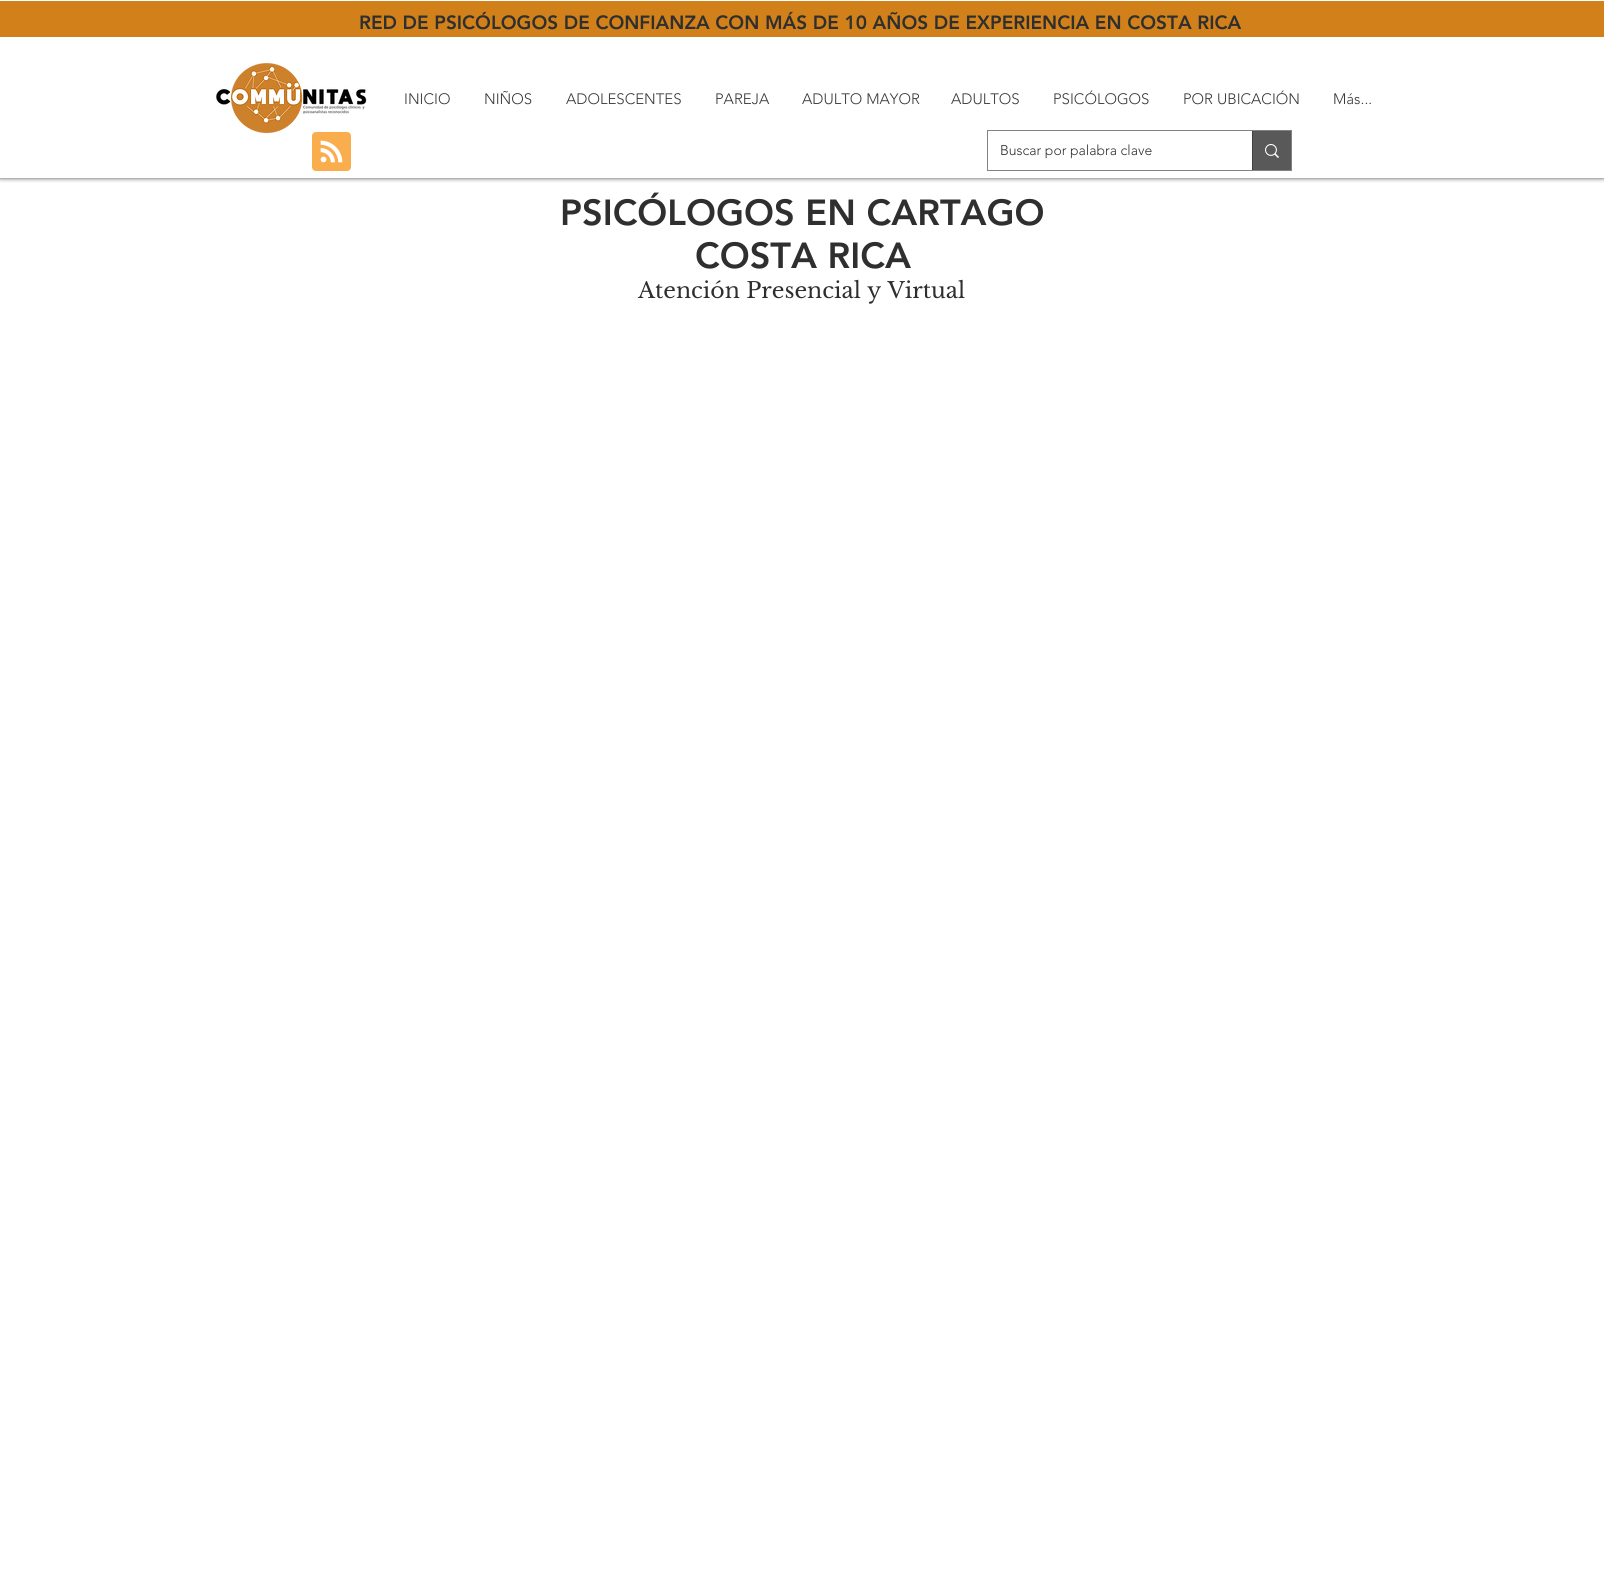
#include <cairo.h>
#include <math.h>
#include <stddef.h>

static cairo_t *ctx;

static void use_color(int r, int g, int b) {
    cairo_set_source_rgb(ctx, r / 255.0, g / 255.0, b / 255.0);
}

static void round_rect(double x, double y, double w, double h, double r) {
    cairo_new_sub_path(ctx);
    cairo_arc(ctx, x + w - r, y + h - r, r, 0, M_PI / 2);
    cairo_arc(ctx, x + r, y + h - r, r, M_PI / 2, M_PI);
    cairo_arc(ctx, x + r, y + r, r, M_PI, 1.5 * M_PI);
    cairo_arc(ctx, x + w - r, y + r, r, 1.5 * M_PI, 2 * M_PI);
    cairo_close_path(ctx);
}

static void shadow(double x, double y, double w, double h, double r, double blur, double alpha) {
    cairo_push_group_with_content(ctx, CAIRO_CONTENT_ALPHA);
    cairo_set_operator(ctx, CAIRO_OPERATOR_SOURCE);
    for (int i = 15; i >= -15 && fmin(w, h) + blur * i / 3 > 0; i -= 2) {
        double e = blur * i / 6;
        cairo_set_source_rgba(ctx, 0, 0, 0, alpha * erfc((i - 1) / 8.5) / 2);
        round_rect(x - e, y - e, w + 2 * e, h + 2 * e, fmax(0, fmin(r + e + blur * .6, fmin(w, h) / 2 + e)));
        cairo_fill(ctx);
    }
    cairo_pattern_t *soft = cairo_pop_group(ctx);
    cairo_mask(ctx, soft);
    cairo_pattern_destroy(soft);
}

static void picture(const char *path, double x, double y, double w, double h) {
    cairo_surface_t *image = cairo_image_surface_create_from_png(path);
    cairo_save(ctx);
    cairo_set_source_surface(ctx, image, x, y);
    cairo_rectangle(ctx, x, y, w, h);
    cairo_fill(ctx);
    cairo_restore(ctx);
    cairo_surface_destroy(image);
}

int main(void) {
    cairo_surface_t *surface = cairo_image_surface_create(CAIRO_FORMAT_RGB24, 1604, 1583);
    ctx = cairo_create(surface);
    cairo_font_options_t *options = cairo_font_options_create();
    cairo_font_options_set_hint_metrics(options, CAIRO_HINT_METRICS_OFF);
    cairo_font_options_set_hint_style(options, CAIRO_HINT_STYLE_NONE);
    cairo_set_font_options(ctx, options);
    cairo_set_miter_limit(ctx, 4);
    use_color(255, 255, 255);
    cairo_paint(ctx);
    cairo_save(ctx);
    cairo_rectangle(ctx, 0, 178, 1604, 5);
    cairo_clip(ctx);
    use_color(0, 0, 0);
    shadow(0, 0, 1604, 178, 0, 2.5, 0.7);
    cairo_restore(ctx);
    use_color(209, 128, 26);
    cairo_rectangle(ctx, 0, 1, 1604, 36);
    cairo_fill(ctx);
    cairo_select_font_face(ctx, "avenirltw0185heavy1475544 Black", CAIRO_FONT_SLANT_NORMAL, CAIRO_FONT_WEIGHT_NORMAL);
    cairo_set_font_size(ctx, 19);
    use_color(47, 47, 48);
    cairo_move_to(ctx, 359, 29);
    cairo_show_text(ctx, "RED DE PSICÓLOGOS DE CONFIANZA CON MÁS DE 10 AÑOS DE EXPERIENCIA EN COSTA RICA");
    picture("img1.png", 216, 63, 151, 71);
    cairo_select_font_face(ctx, "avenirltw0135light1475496 Light", CAIRO_FONT_SLANT_NORMAL, CAIRO_FONT_WEIGHT_NORMAL);
    cairo_set_font_size(ctx, 15);
    use_color(56, 56, 56);
    cairo_move_to(ctx, 404, 104);
    cairo_show_text(ctx, "INICIO");
    cairo_move_to(ctx, 484, 104);
    cairo_show_text(ctx, "NIÑOS");
    cairo_move_to(ctx, 566, 104);
    cairo_show_text(ctx, "ADOLESCENTES");
    cairo_move_to(ctx, 715, 104);
    cairo_show_text(ctx, "PAREJA");
    cairo_move_to(ctx, 802, 104);
    cairo_show_text(ctx, "ADULTO MAYOR");
    cairo_move_to(ctx, 951, 104);
    cairo_show_text(ctx, "ADULTOS");
    cairo_move_to(ctx, 1053, 104);
    cairo_show_text(ctx, "PSICÓLOGOS");
    cairo_move_to(ctx, 1183, 104);
    cairo_show_text(ctx, "POR UBICACIÓN");
    cairo_move_to(ctx, 1333, 104);
    cairo_show_text(ctx, "Más...");
    picture("img2.png", 312, 132, 39, 39);
    cairo_rectangle(ctx, 987.5, 130.5, 304, 40);
    use_color(130, 130, 131);
    cairo_set_line_width(ctx, 1);
    cairo_stroke(ctx);
    cairo_set_font_size(ctx, 14);
    use_color(47, 47, 48);
    cairo_move_to(ctx, 1000, 155);
    cairo_show_text(ctx, "Buscar por palabra clave");
    use_color(89, 89, 89);
    cairo_rectangle(ctx, 1253, 131, 38, 39);
    cairo_fill(ctx);
    use_color(64, 64, 64);
    cairo_rectangle(ctx, 1252, 131, 1, 39);
    cairo_fill(ctx);
    picture("img3.png", 1265, 144, 14, 14);
    cairo_select_font_face(ctx, "avenirltw0185heavy1475544 Black", CAIRO_FONT_SLANT_NORMAL, CAIRO_FONT_WEIGHT_NORMAL);
    cairo_set_font_size(ctx, 36);
    use_color(47, 47, 48);
    cairo_move_to(ctx, 560, 225);
    cairo_show_text(ctx, "PSICÓLOGOS EN CARTAGO");
    cairo_move_to(ctx, 695, 268);
    cairo_show_text(ctx, "COSTA RICA");
    cairo_select_font_face(ctx, "Libre Baskerville", CAIRO_FONT_SLANT_NORMAL, CAIRO_FONT_WEIGHT_NORMAL);
    cairo_set_font_size(ctx, 22);
    cairo_move_to(ctx, 638, 298);
    cairo_show_text(ctx, "Atención Presencial y Virtual");
    cairo_surface_write_to_png(surface, "result.png");
    cairo_font_options_destroy(options);
    cairo_destroy(ctx);
    cairo_surface_destroy(surface);
    return 0;
}
